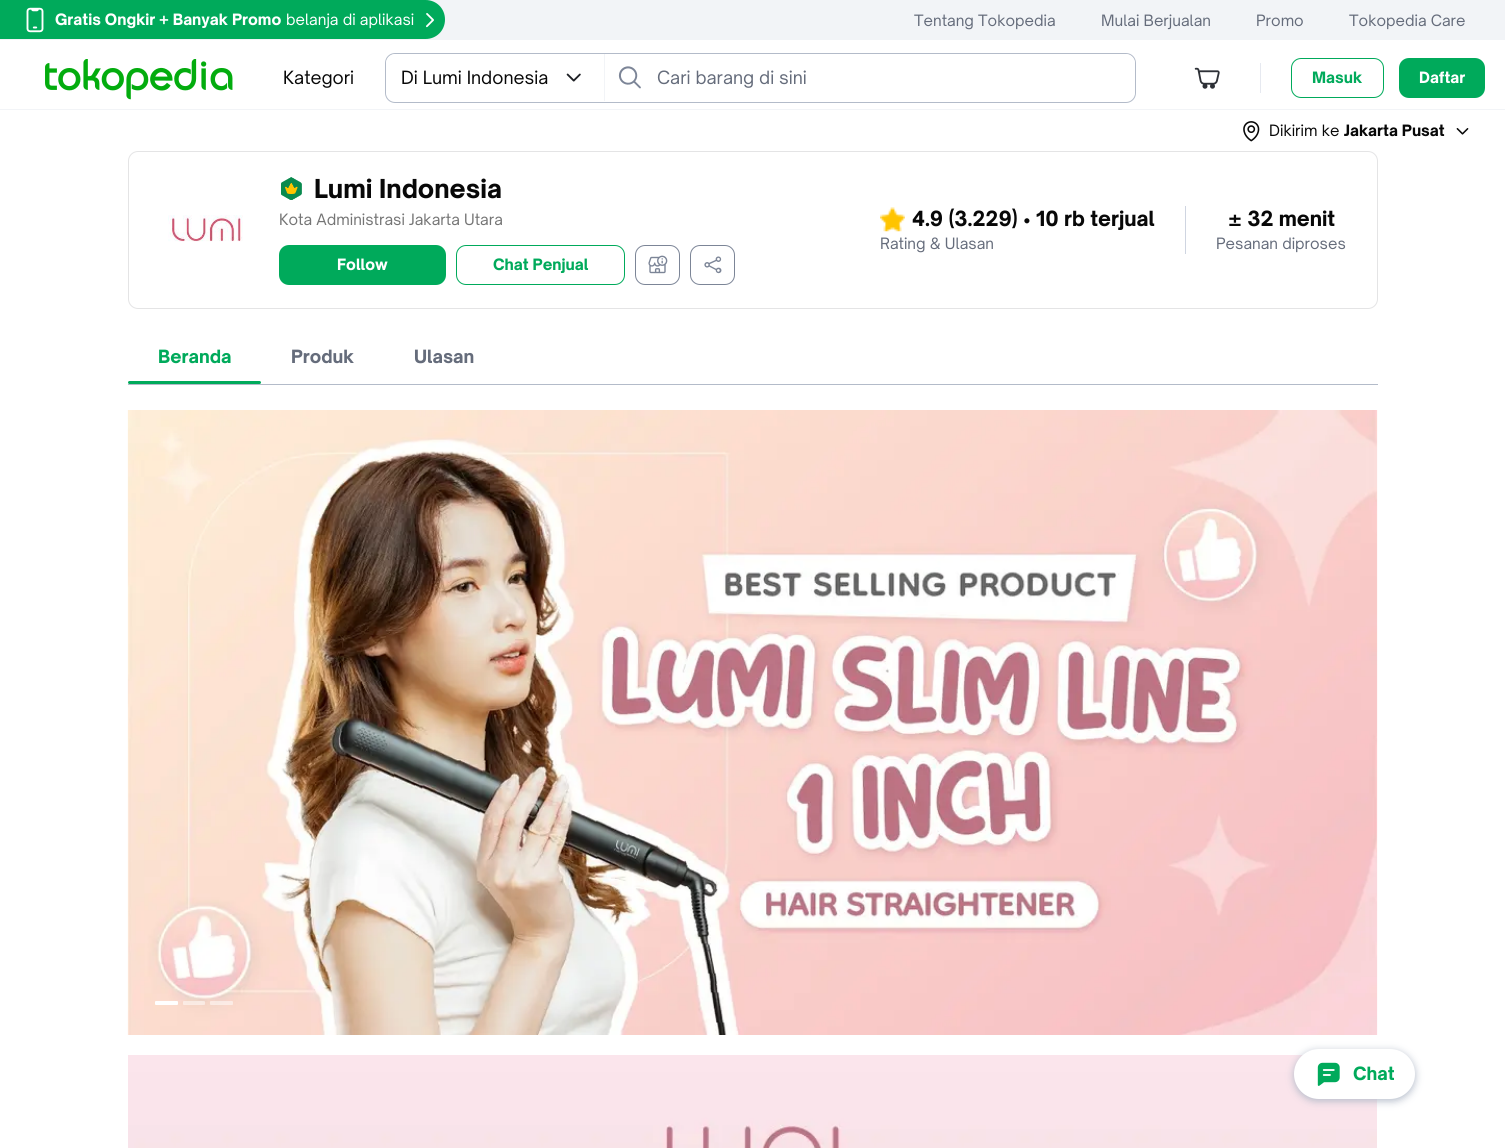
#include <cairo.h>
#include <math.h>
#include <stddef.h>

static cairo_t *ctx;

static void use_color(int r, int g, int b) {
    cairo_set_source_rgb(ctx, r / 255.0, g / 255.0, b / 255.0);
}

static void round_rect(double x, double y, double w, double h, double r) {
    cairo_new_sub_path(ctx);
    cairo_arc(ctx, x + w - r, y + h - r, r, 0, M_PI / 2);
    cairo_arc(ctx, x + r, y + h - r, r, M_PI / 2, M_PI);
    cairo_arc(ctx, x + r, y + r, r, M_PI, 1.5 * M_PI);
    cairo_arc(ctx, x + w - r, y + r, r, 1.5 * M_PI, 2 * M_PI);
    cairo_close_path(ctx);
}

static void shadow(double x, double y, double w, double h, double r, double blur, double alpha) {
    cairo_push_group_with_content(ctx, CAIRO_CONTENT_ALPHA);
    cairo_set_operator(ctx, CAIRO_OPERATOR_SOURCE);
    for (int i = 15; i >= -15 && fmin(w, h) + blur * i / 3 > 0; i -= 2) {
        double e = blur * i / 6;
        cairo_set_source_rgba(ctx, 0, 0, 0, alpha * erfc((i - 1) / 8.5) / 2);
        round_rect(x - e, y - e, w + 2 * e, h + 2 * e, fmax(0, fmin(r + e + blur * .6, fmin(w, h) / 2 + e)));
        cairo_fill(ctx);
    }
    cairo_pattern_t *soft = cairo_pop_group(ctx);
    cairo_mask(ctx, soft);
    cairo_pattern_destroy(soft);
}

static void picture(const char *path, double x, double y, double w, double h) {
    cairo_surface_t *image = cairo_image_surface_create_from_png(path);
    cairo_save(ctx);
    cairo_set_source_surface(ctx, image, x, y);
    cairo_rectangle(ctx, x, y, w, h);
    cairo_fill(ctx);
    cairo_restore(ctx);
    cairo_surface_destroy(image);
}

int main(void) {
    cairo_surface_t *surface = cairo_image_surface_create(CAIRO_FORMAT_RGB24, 1505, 1148);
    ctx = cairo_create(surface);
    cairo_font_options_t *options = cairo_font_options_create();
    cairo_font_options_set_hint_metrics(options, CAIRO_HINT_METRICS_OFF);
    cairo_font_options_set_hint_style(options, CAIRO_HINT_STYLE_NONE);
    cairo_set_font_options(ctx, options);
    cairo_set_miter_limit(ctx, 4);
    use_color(255, 255, 255);
    cairo_paint(ctx);
    use_color(242, 244, 247);
    cairo_rectangle(ctx, 0, 109, 1505, 1);
    cairo_fill(ctx);
    cairo_rectangle(ctx, 0, 0, 1505, 40);
    cairo_fill(ctx);
    use_color(0, 170, 91);
    cairo_new_path(ctx);
    cairo_move_to(ctx, 0, 0);
    cairo_line_to(ctx, 425.5, 0);
    cairo_curve_to(ctx, 436.5, 0, 445, 8.5, 445, 19.5);
    cairo_curve_to(ctx, 445, 30.5, 436.5, 39, 425.5, 39);
    cairo_line_to(ctx, 0, 39);
    cairo_close_path(ctx);
    cairo_fill(ctx);
    picture("img1.png", 26, 7, 18, 26);
    cairo_select_font_face(ctx, "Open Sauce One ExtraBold", CAIRO_FONT_SLANT_NORMAL, CAIRO_FONT_WEIGHT_NORMAL);
    cairo_set_font_size(ctx, 15);
    use_color(255, 255, 255);
    cairo_move_to(ctx, 55, 25);
    cairo_show_text(ctx, "Gratis Ongkir + Banyak Promo");
    cairo_select_font_face(ctx, "Open Sauce One", CAIRO_FONT_SLANT_NORMAL, CAIRO_FONT_WEIGHT_NORMAL);
    cairo_move_to(ctx, 286, 25);
    cairo_show_text(ctx, "belanja di aplikasi");
    picture("img2.png", 426, 13, 8, 15);
    use_color(101, 108, 123);
    cairo_move_to(ctx, 914, 26);
    cairo_show_text(ctx, "Tentang Tokopedia");
    cairo_move_to(ctx, 1101, 26);
    cairo_show_text(ctx, "Mulai Berjualan");
    cairo_move_to(ctx, 1256, 26);
    cairo_show_text(ctx, "Promo");
    cairo_move_to(ctx, 1349, 26);
    cairo_show_text(ctx, "Tokopedia Care");
    picture("img3.png", 45, 59, 188, 41);
    cairo_set_font_size(ctx, 17.5);
    use_color(8, 8, 8);
    cairo_move_to(ctx, 283, 84);
    cairo_show_text(ctx, "Kategori");
    round_rect(385.5, 53.5, 750, 49, 9.5);
    use_color(179, 187, 201);
    cairo_set_line_width(ctx, 1);
    cairo_stroke(ctx);
    use_color(255, 255, 255);
    cairo_new_path(ctx);
    cairo_move_to(ctx, 396, 54);
    cairo_line_to(ctx, 605, 54);
    cairo_line_to(ctx, 605, 101);
    cairo_line_to(ctx, 396, 101);
    cairo_curve_to(ctx, 390.5, 101, 386, 96.5, 386, 91);
    cairo_line_to(ctx, 386, 64);
    cairo_curve_to(ctx, 386, 58.5, 390.5, 54, 396, 54);
    cairo_close_path(ctx);
    cairo_fill(ctx);
    use_color(242, 244, 247);
    cairo_rectangle(ctx, 604, 54, 1, 47);
    cairo_fill(ctx);
    use_color(8, 8, 8);
    cairo_move_to(ctx, 401, 84);
    cairo_show_text(ctx, "Di Lumi Indonesia");
    picture("img4.png", 566, 73, 15, 9);
    use_color(255, 255, 255);
    round_rect(605, 54, 530, 47, 10);
    cairo_fill(ctx);
    picture("img5.png", 618, 66, 23, 23);
    use_color(101, 108, 123);
    cairo_move_to(ctx, 657, 84);
    cairo_show_text(ctx, "Cari barang di sini");
    picture("img6.png", 1194, 67, 26, 22);
    use_color(230, 233, 240);
    cairo_rectangle(ctx, 1260, 63, 1, 30);
    cairo_fill(ctx);
    round_rect(1291.5, 58.5, 92, 39, 9.5);
    use_color(0, 170, 91);
    cairo_stroke(ctx);
    cairo_select_font_face(ctx, "Open Sauce One ExtraBold", CAIRO_FONT_SLANT_NORMAL, CAIRO_FONT_WEIGHT_NORMAL);
    cairo_set_font_size(ctx, 15);
    cairo_move_to(ctx, 1312, 83);
    cairo_show_text(ctx, "Masuk");
    round_rect(1399, 58, 86, 40, 10);
    cairo_fill(ctx);
    use_color(255, 255, 255);
    cairo_move_to(ctx, 1419, 83);
    cairo_show_text(ctx, "Daftar");
    picture("img7.png", 1243, 121, 17, 21);
    cairo_select_font_face(ctx, "Open Sauce One", CAIRO_FONT_SLANT_NORMAL, CAIRO_FONT_WEIGHT_NORMAL);
    use_color(8, 8, 8);
    cairo_move_to(ctx, 1269, 136);
    cairo_show_text(ctx, "Dikirim ke");
    cairo_select_font_face(ctx, "Open Sauce One ExtraBold", CAIRO_FONT_SLANT_NORMAL, CAIRO_FONT_WEIGHT_NORMAL);
    cairo_move_to(ctx, 1344, 136);
    cairo_show_text(ctx, "Jakarta Pusat");
    picture("img8.png", 1456, 128, 13, 7);
    round_rect(128.5, 151.5, 1249, 157, 9.5);
    use_color(228, 228, 229);
    cairo_stroke(ctx);
    picture("img9.png", 168, 215, 75, 27);
    picture("img10.png", 281, 177, 21, 23);
    cairo_set_font_size(ctx, 25);
    use_color(8, 8, 8);
    cairo_move_to(ctx, 314, 198);
    cairo_show_text(ctx, "Lumi Indonesia");
    cairo_select_font_face(ctx, "Open Sauce One", CAIRO_FONT_SLANT_NORMAL, CAIRO_FONT_WEIGHT_NORMAL);
    cairo_set_font_size(ctx, 15);
    use_color(117, 117, 117);
    cairo_move_to(ctx, 279, 225);
    cairo_show_text(ctx, "Kota Administrasi Jakarta Utara");
    use_color(0, 170, 91);
    round_rect(279, 245, 167, 40, 10);
    cairo_fill(ctx);
    cairo_select_font_face(ctx, "Open Sauce One ExtraBold", CAIRO_FONT_SLANT_NORMAL, CAIRO_FONT_WEIGHT_NORMAL);
    use_color(255, 255, 255);
    cairo_move_to(ctx, 337, 270);
    cairo_show_text(ctx, "Follow");
    round_rect(456.5, 245.5, 168, 39, 9.5);
    use_color(0, 170, 91);
    cairo_stroke(ctx);
    cairo_move_to(ctx, 493, 270);
    cairo_show_text(ctx, "Chat Penjual");
    round_rect(635.5, 245.5, 44, 39, 9.5);
    use_color(124, 133, 151);
    cairo_stroke(ctx);
    picture("img11.png", 648, 255, 20, 19);
    round_rect(690.5, 245.5, 44, 39, 9.5);
    cairo_stroke(ctx);
    picture("img12.png", 704, 256, 18, 18);
    picture("img13.png", 880, 207, 25, 25);
    cairo_set_font_size(ctx, 20);
    use_color(8, 8, 8);
    cairo_move_to(ctx, 912, 226);
    cairo_show_text(ctx, "4.9 (3.229) • 10 rb terjual");
    cairo_select_font_face(ctx, "Open Sauce One", CAIRO_FONT_SLANT_NORMAL, CAIRO_FONT_WEIGHT_NORMAL);
    cairo_set_font_size(ctx, 15);
    use_color(101, 108, 123);
    cairo_move_to(ctx, 880, 249);
    cairo_show_text(ctx, "Rating & Ulasan");
    use_color(207, 213, 225);
    cairo_rectangle(ctx, 1185, 206, 1, 48);
    cairo_fill(ctx);
    cairo_select_font_face(ctx, "Open Sauce One ExtraBold", CAIRO_FONT_SLANT_NORMAL, CAIRO_FONT_WEIGHT_NORMAL);
    cairo_set_font_size(ctx, 20);
    use_color(8, 8, 8);
    cairo_move_to(ctx, 1228, 226);
    cairo_show_text(ctx, "± 32 menit");
    cairo_select_font_face(ctx, "Open Sauce One", CAIRO_FONT_SLANT_NORMAL, CAIRO_FONT_WEIGHT_NORMAL);
    cairo_set_font_size(ctx, 15);
    use_color(101, 108, 123);
    cairo_move_to(ctx, 1216, 249);
    cairo_show_text(ctx, "Pesanan diproses");
    use_color(179, 187, 201);
    cairo_rectangle(ctx, 128, 384, 1250, 1);
    cairo_fill(ctx);
    cairo_select_font_face(ctx, "Open Sauce One ExtraBold", CAIRO_FONT_SLANT_NORMAL, CAIRO_FONT_WEIGHT_NORMAL);
    cairo_set_font_size(ctx, 17.5);
    use_color(0, 170, 91);
    cairo_move_to(ctx, 158, 363);
    cairo_show_text(ctx, "Beranda");
    use_color(101, 108, 123);
    cairo_move_to(ctx, 291, 363);
    cairo_show_text(ctx, "Produk");
    cairo_move_to(ctx, 414, 363);
    cairo_show_text(ctx, "Ulasan");
    use_color(0, 170, 91);
    round_rect(128, 381, 133, 3, 1.5);
    cairo_fill(ctx);
    picture("img14.png", 127, 410, 1251, 625);
    use_color(255, 255, 255);
    round_rect(155, 1001, 23, 4, 1);
    cairo_fill(ctx);
    cairo_set_source_rgba(ctx, 1, 1, 1, 0.5);
    round_rect(183, 1001, 22, 4, 1);
    cairo_fill(ctx);
    round_rect(210, 1001, 23, 4, 1);
    cairo_fill(ctx);
    picture("img15.png", 128, 1055, 1249, 93);
    use_color(179, 187, 201);
    shadow(1294, 1051, 121, 50, 25, 4, 1);
    use_color(255, 255, 255);
    round_rect(1294, 1049, 121, 50, 25);
    cairo_fill(ctx);
    picture("img16.png", 1317, 1062, 23, 24);
    use_color(0, 170, 91);
    cairo_move_to(ctx, 1353, 1080);
    cairo_show_text(ctx, "Chat");
    cairo_surface_write_to_png(surface, "result.png");
    cairo_font_options_destroy(options);
    cairo_destroy(ctx);
    cairo_surface_destroy(surface);
    return 0;
}
